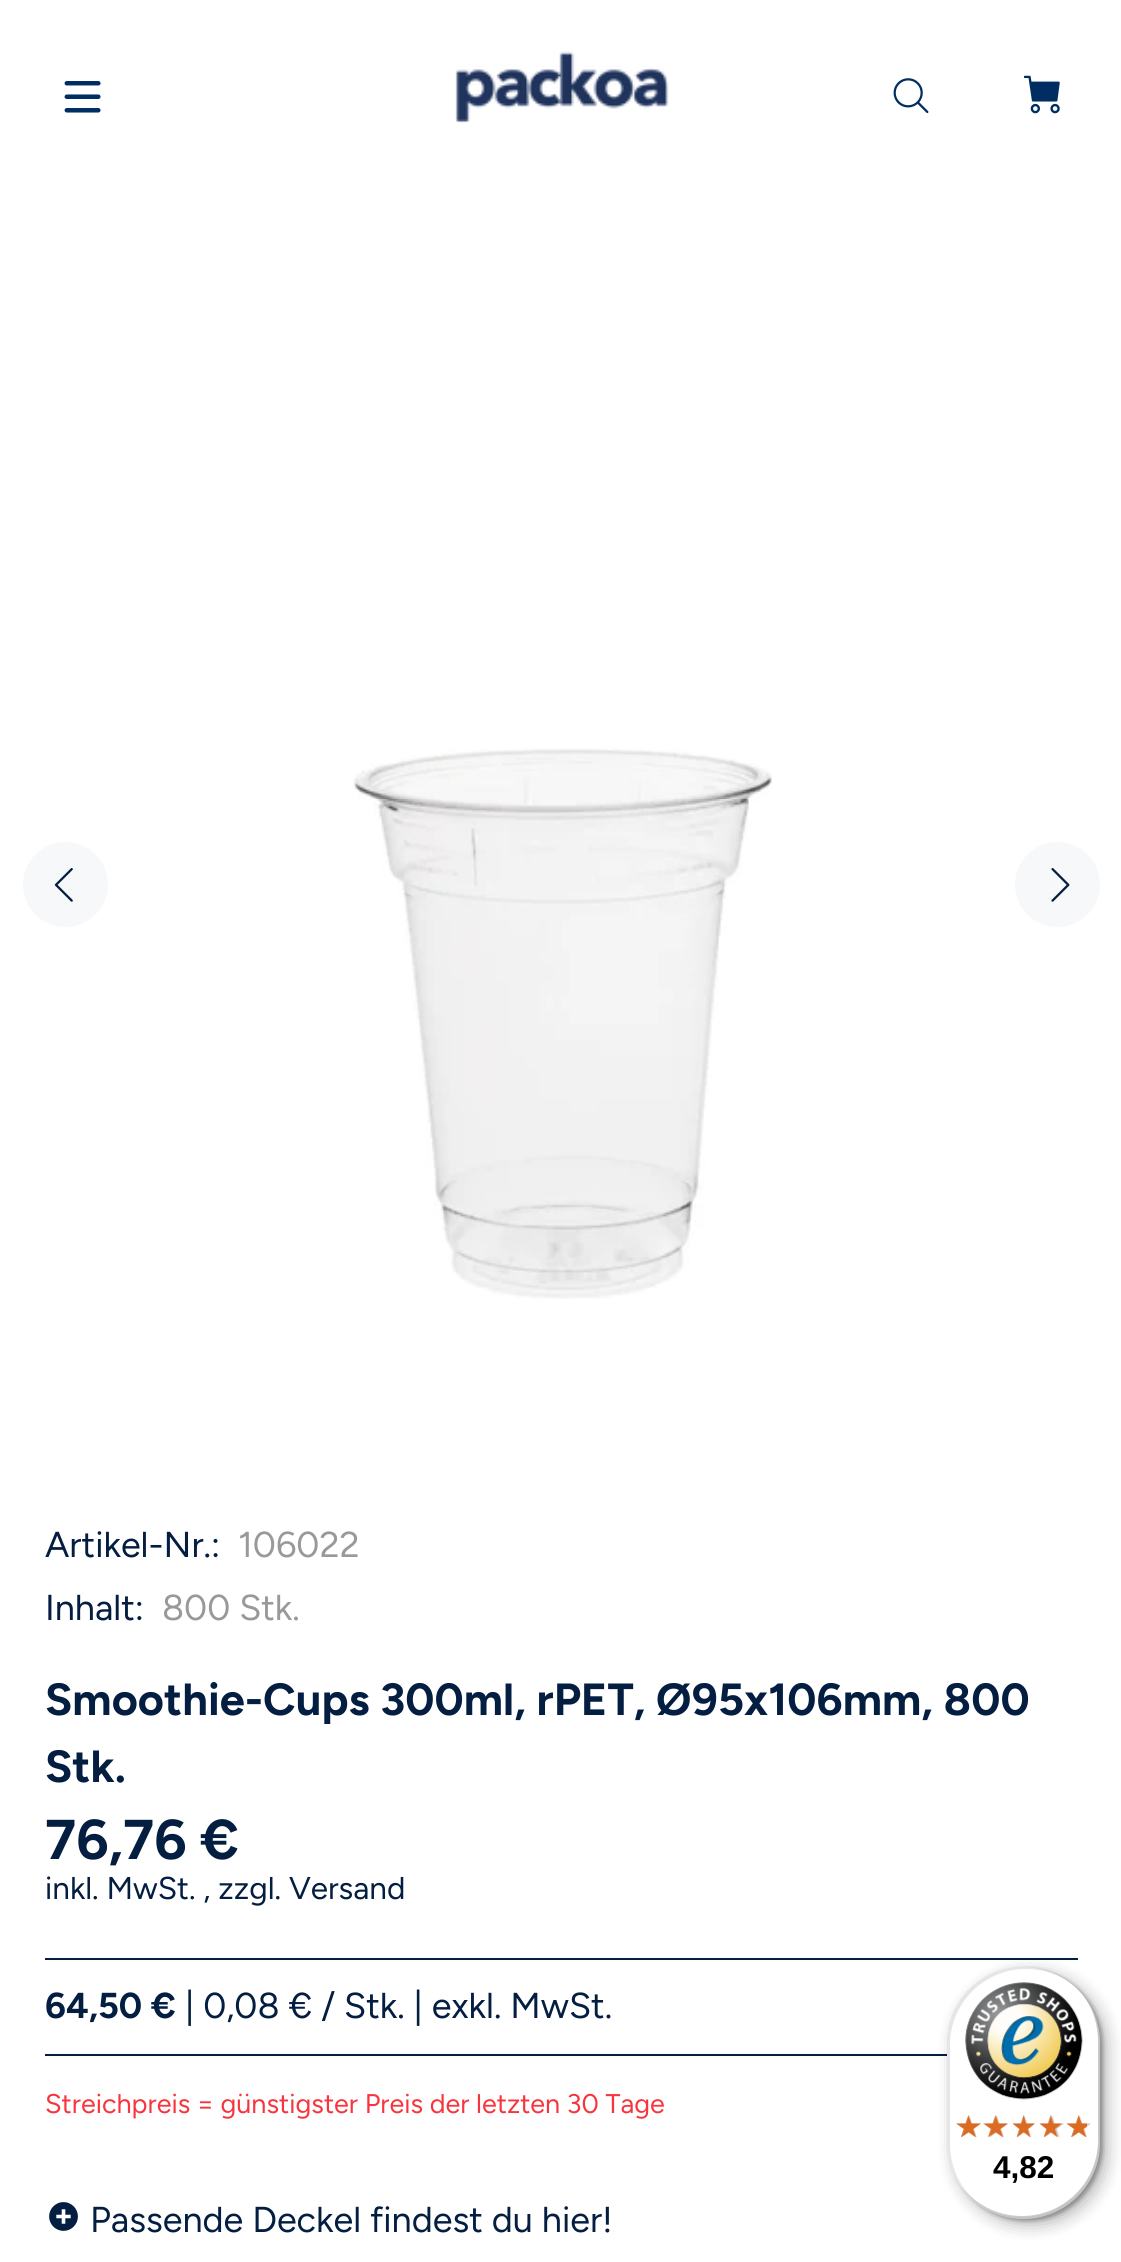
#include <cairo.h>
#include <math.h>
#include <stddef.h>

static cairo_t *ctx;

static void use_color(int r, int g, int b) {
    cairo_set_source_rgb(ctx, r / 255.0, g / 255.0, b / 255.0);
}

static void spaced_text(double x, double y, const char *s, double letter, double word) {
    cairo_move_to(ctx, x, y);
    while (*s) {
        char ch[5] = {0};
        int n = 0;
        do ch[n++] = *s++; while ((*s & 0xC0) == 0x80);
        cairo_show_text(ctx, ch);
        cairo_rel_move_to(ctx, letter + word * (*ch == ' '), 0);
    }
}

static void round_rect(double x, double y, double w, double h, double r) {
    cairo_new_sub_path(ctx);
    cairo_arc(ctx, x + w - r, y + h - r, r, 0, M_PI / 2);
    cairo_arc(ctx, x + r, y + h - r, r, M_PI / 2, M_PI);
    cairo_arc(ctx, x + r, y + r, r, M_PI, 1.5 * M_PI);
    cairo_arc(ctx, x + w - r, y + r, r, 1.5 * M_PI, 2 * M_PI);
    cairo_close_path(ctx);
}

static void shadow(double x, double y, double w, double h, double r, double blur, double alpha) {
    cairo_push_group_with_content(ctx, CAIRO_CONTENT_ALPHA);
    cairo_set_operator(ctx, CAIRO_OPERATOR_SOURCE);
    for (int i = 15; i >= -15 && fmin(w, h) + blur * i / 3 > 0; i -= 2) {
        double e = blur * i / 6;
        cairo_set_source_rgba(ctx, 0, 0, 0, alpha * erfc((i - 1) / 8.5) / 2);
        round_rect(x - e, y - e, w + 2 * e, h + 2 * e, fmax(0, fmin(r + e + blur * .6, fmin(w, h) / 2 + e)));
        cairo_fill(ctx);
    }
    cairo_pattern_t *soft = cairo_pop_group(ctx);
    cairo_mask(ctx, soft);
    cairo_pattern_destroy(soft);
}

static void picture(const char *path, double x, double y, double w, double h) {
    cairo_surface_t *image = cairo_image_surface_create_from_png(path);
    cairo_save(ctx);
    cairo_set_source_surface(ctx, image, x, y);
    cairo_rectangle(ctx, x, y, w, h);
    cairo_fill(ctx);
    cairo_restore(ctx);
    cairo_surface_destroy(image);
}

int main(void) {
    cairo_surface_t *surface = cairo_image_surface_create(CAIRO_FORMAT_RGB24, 1121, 2262);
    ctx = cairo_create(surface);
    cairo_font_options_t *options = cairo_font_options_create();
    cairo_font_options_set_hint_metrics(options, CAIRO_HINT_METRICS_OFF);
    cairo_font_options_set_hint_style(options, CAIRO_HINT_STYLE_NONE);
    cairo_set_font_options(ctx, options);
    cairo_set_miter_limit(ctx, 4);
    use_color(255, 255, 255);
    cairo_paint(ctx);
    picture("img1.png", 64, 81, 37, 32);
    picture("img2.png", 455, 51, 214, 72);
    picture("img3.png", 893, 78, 36, 36);
    picture("img4.png", 1024, 75, 36, 39);
    use_color(247, 248, 250);
    cairo_arc(ctx, 65.5, 884.5, 42.5, 0, 2 * M_PI);
    cairo_fill(ctx);
    picture("img5.png", 54, 868, 19, 34);
    picture("img6.png", 353, 748, 419, 551);
    cairo_arc(ctx, 1057.5, 884.5, 42.5, 0, 2 * M_PI);
    cairo_fill(ctx);
    picture("img7.png", 1051, 868, 19, 34);
    cairo_select_font_face(ctx, "Figtree", CAIRO_FONT_SLANT_NORMAL, CAIRO_FONT_WEIGHT_NORMAL);
    cairo_set_font_size(ctx, 36);
    use_color(4, 30, 66);
    cairo_move_to(ctx, 45, 1557);
    cairo_show_text(ctx, "Artikel-Nr.:");
    use_color(153, 153, 153);
    cairo_move_to(ctx, 238, 1557);
    cairo_show_text(ctx, "106022");
    use_color(4, 30, 66);
    cairo_move_to(ctx, 45, 1620);
    cairo_show_text(ctx, "Inhalt:");
    use_color(153, 153, 153);
    cairo_move_to(ctx, 162, 1620);
    cairo_show_text(ctx, "800 Stk.");
    cairo_select_font_face(ctx, "Figtree", CAIRO_FONT_SLANT_NORMAL, CAIRO_FONT_WEIGHT_BOLD);
    cairo_set_font_size(ctx, 45);
    use_color(4, 30, 66);
    spaced_text(45, 1715, "Smoothie-Cups 300ml, rPET, Ø95x106mm, 800", 0.05, 0);
    spaced_text(45, 1782, "Stk.", 0.05, 0);
    cairo_set_font_size(ctx, 56);
    cairo_move_to(ctx, 45, 1859);
    cairo_show_text(ctx, "76,76 €");
    cairo_select_font_face(ctx, "Figtree", CAIRO_FONT_SLANT_NORMAL, CAIRO_FONT_WEIGHT_NORMAL);
    cairo_set_font_size(ctx, 31.5);
    cairo_move_to(ctx, 45, 1899);
    cairo_show_text(ctx, "inkl. MwSt. , zzgl. Versand");
    cairo_rectangle(ctx, 45, 1958, 1033, 2);
    cairo_fill(ctx);
    cairo_rectangle(ctx, 45, 2054, 902, 2);
    cairo_fill(ctx);
    cairo_select_font_face(ctx, "Figtree", CAIRO_FONT_SLANT_NORMAL, CAIRO_FONT_WEIGHT_BOLD);
    cairo_set_font_size(ctx, 36);
    cairo_move_to(ctx, 45, 2018);
    cairo_show_text(ctx, "64,50 €");
    cairo_select_font_face(ctx, "Figtree", CAIRO_FONT_SLANT_NORMAL, CAIRO_FONT_WEIGHT_NORMAL);
    cairo_move_to(ctx, 185, 2018);
    cairo_show_text(ctx, "| 0,08 € / Stk. | exkl. MwSt.");
    cairo_set_font_size(ctx, 27);
    use_color(248, 53, 62);
    cairo_move_to(ctx, 45, 2113);
    cairo_show_text(ctx, "Streichpreis = günstigster Preis der letzten 30 Tage");
    picture("img8.png", 49, 2202, 29, 29);
    cairo_set_font_size(ctx, 36);
    use_color(4, 30, 66);
    cairo_move_to(ctx, 90, 2232);
    cairo_show_text(ctx, "Passende Deckel findest du hier!");
    use_color(0, 0, 0);
    shadow(954, 1973, 153, 252, 76.5, 9, 0.15);
    shadow(950, 1969, 153, 252, 76.5, 2, 0.15);
    cairo_set_source_rgba(ctx, 0, 0, 0, 0.1);
    cairo_new_path(ctx);
    cairo_move_to(ctx, 1026, 1969);
    cairo_curve_to(ctx, 1044, 1969, 1061, 1975, 1074, 1986);
    cairo_curve_to(ctx, 1061, 1974, 1043, 1967, 1024, 1967);
    cairo_curve_to(ctx, 981, 1967, 947, 2001, 947, 2044);
    cairo_line_to(ctx, 947, 2142);
    cairo_curve_to(ctx, 947, 2170, 962, 2194, 984, 2208);
    cairo_curve_to(ctx, 963, 2194, 950, 2170, 950, 2144);
    cairo_line_to(ctx, 950, 2045);
    cairo_curve_to(ctx, 950, 2003, 984, 1969, 1026, 1969);
    cairo_close_path(ctx);
    cairo_fill(ctx);
    cairo_set_source_rgba(ctx, 0, 0, 0, 0.2);
    cairo_new_path(ctx);
    cairo_move_to(ctx, 961, 2186);
    cairo_curve_to(ctx, 975, 2206, 997, 2219, 1024, 2219);
    cairo_curve_to(ctx, 1066, 2219, 1100, 2185, 1100, 2142);
    cairo_line_to(ctx, 1100, 2044);
    cairo_curve_to(ctx, 1100, 2026, 1094, 2010, 1084, 1997);
    cairo_curve_to(ctx, 1093, 2009, 1098, 2025, 1098, 2041);
    cairo_line_to(ctx, 1098, 2140);
    cairo_curve_to(ctx, 1098, 2182, 1064, 2216, 1022, 2216);
    cairo_curve_to(ctx, 997, 2216, 975, 2204, 961, 2186);
    cairo_close_path(ctx);
    cairo_fill(ctx);
    cairo_set_source_rgba(ctx, 0.196, 0.196, 0.196, 0.2);
    cairo_new_path(ctx);
    cairo_move_to(ctx, 958, 2182);
    cairo_curve_to(ctx, 971, 2204, 996, 2219, 1024, 2219);
    cairo_curve_to(ctx, 1066, 2219, 1100, 2185, 1100, 2142);
    cairo_line_to(ctx, 1100, 2044);
    cairo_curve_to(ctx, 1100, 2031, 1097, 2019, 1091, 2008);
    cairo_curve_to(ctx, 1096, 2018, 1099, 2030, 1099, 2042);
    cairo_line_to(ctx, 1099, 2141);
    cairo_curve_to(ctx, 1099, 2183, 1065, 2217, 1022, 2217);
    cairo_curve_to(ctx, 995, 2217, 971, 2203, 958, 2182);
    cairo_close_path(ctx);
    cairo_fill(ctx);
    cairo_set_source_rgba(ctx, 1, 1, 1, 0.3);
    cairo_new_path(ctx);
    cairo_move_to(ctx, 957, 2181);
    cairo_curve_to(ctx, 970, 2204, 995, 2219, 1024, 2219);
    cairo_curve_to(ctx, 1066, 2219, 1100, 2185, 1100, 2142);
    cairo_line_to(ctx, 1100, 2044);
    cairo_curve_to(ctx, 1100, 2029, 1096, 2015, 1088, 2003);
    cairo_curve_to(ctx, 1095, 2015, 1099, 2028, 1099, 2042);
    cairo_line_to(ctx, 1099, 2141);
    cairo_curve_to(ctx, 1099, 2183, 1065, 2217, 1023, 2217);
    cairo_curve_to(ctx, 995, 2217, 971, 2202, 957, 2181);
    cairo_close_path(ctx);
    cairo_fill(ctx);
    use_color(0, 0, 0);
    shadow(954, 1973, 153, 252, 76.5, 9, 0.15);
    shadow(950, 1969, 153, 252, 76.5, 2, 0.15);
    use_color(255, 255, 255);
    round_rect(947, 1967, 153, 252, 76.5);
    cairo_fill(ctx);
    cairo_set_source_rgba(ctx, 0, 0, 0, 0.1);
    cairo_new_path(ctx);
    cairo_move_to(ctx, 1026, 1969);
    cairo_curve_to(ctx, 1044, 1969, 1061, 1975, 1074, 1986);
    cairo_curve_to(ctx, 1061, 1974, 1043, 1967, 1024, 1967);
    cairo_curve_to(ctx, 981, 1967, 947, 2001, 947, 2044);
    cairo_line_to(ctx, 947, 2142);
    cairo_curve_to(ctx, 947, 2170, 962, 2194, 984, 2208);
    cairo_curve_to(ctx, 963, 2194, 950, 2170, 950, 2144);
    cairo_line_to(ctx, 950, 2045);
    cairo_curve_to(ctx, 950, 2003, 984, 1969, 1026, 1969);
    cairo_close_path(ctx);
    cairo_fill(ctx);
    cairo_set_source_rgba(ctx, 0, 0, 0, 0.2);
    cairo_new_path(ctx);
    cairo_move_to(ctx, 961, 2186);
    cairo_curve_to(ctx, 975, 2206, 997, 2219, 1024, 2219);
    cairo_curve_to(ctx, 1066, 2219, 1100, 2185, 1100, 2142);
    cairo_line_to(ctx, 1100, 2044);
    cairo_curve_to(ctx, 1100, 2026, 1094, 2010, 1084, 1997);
    cairo_curve_to(ctx, 1093, 2009, 1098, 2025, 1098, 2041);
    cairo_line_to(ctx, 1098, 2140);
    cairo_curve_to(ctx, 1098, 2182, 1064, 2216, 1022, 2216);
    cairo_curve_to(ctx, 997, 2216, 975, 2204, 961, 2186);
    cairo_close_path(ctx);
    cairo_fill(ctx);
    cairo_set_source_rgba(ctx, 0.196, 0.196, 0.196, 0.2);
    cairo_new_path(ctx);
    cairo_move_to(ctx, 958, 2182);
    cairo_curve_to(ctx, 971, 2204, 996, 2219, 1024, 2219);
    cairo_curve_to(ctx, 1066, 2219, 1100, 2185, 1100, 2142);
    cairo_line_to(ctx, 1100, 2044);
    cairo_curve_to(ctx, 1100, 2031, 1097, 2019, 1091, 2008);
    cairo_curve_to(ctx, 1096, 2018, 1099, 2030, 1099, 2042);
    cairo_line_to(ctx, 1099, 2141);
    cairo_curve_to(ctx, 1099, 2183, 1065, 2217, 1022, 2217);
    cairo_curve_to(ctx, 995, 2217, 971, 2203, 958, 2182);
    cairo_close_path(ctx);
    cairo_fill(ctx);
    cairo_set_source_rgba(ctx, 1, 1, 1, 0.3);
    cairo_new_path(ctx);
    cairo_move_to(ctx, 957, 2181);
    cairo_curve_to(ctx, 970, 2204, 995, 2219, 1024, 2219);
    cairo_curve_to(ctx, 1066, 2219, 1100, 2185, 1100, 2142);
    cairo_line_to(ctx, 1100, 2044);
    cairo_curve_to(ctx, 1100, 2029, 1096, 2015, 1088, 2003);
    cairo_curve_to(ctx, 1095, 2015, 1099, 2028, 1099, 2042);
    cairo_line_to(ctx, 1099, 2141);
    cairo_curve_to(ctx, 1099, 2183, 1065, 2217, 1023, 2217);
    cairo_curve_to(ctx, 995, 2217, 971, 2202, 957, 2181);
    cairo_close_path(ctx);
    cairo_fill(ctx);
    picture("img9.png", 965, 1982, 118, 118);
    picture("img10.png", 956, 2115, 25, 22);
    picture("img11.png", 985, 2115, 23, 22);
    picture("img12.png", 1012, 2115, 23, 22);
    picture("img13.png", 1039, 2115, 26, 22);
    picture("img13.png", 1066, 2115, 26, 22);
    picture("img14.png", 956, 2115, 26, 23);
    picture("img15.png", 983, 2115, 26, 23);
    picture("img16.png", 1012, 2115, 24, 22);
    picture("img17.png", 1039, 2115, 24, 22);
    picture("img18.png", 1066, 2115, 21, 23);
    cairo_select_font_face(ctx, "Liberation Sans", CAIRO_FONT_SLANT_NORMAL, CAIRO_FONT_WEIGHT_BOLD);
    cairo_set_font_size(ctx, 31.5);
    use_color(0, 0, 0);
    cairo_move_to(ctx, 993, 2178);
    cairo_show_text(ctx, "4,82");
    cairo_surface_write_to_png(surface, "result.png");
    cairo_font_options_destroy(options);
    cairo_destroy(ctx);
    cairo_surface_destroy(surface);
    return 0;
}
